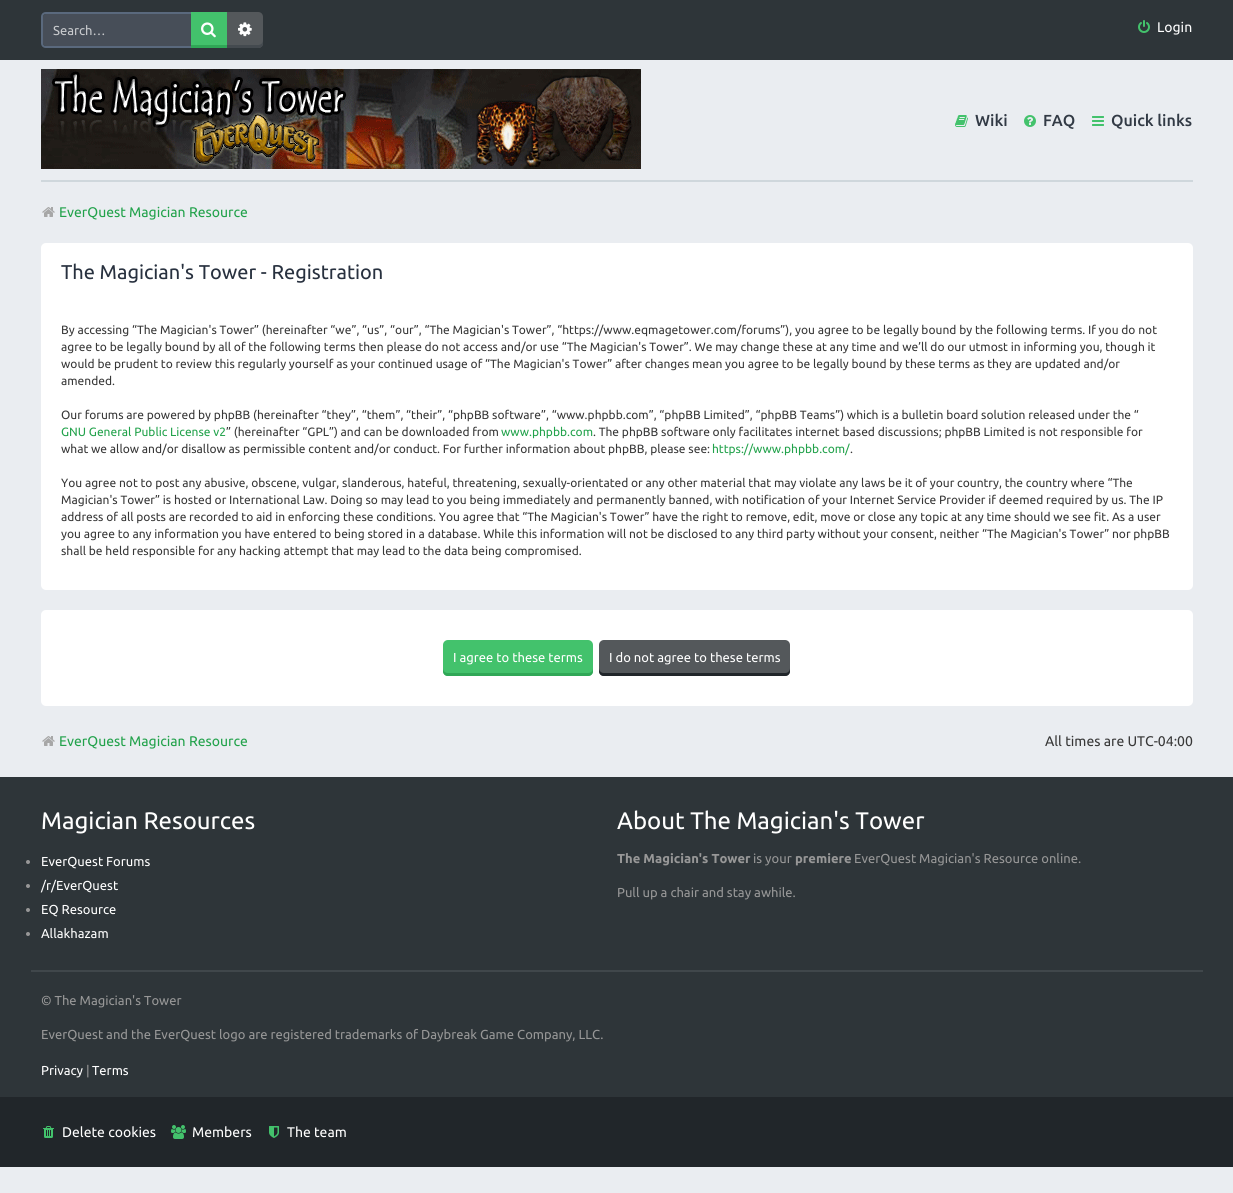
#include <cairo.h>
#include <math.h>
#include <stddef.h>

static cairo_t *ctx;

static void use_color(int r, int g, int b) {
    cairo_set_source_rgb(ctx, r / 255.0, g / 255.0, b / 255.0);
}

static void round_rect(double x, double y, double w, double h, double r) {
    cairo_new_sub_path(ctx);
    cairo_arc(ctx, x + w - r, y + h - r, r, 0, M_PI / 2);
    cairo_arc(ctx, x + r, y + h - r, r, M_PI / 2, M_PI);
    cairo_arc(ctx, x + r, y + r, r, M_PI, 1.5 * M_PI);
    cairo_arc(ctx, x + w - r, y + r, r, 1.5 * M_PI, 2 * M_PI);
    cairo_close_path(ctx);
}

static void picture(const char *path, double x, double y, double w, double h) {
    cairo_surface_t *image = cairo_image_surface_create_from_png(path);
    cairo_save(ctx);
    cairo_set_source_surface(ctx, image, x, y);
    cairo_rectangle(ctx, x, y, w, h);
    cairo_fill(ctx);
    cairo_restore(ctx);
    cairo_surface_destroy(image);
}

int main(void) {
    cairo_surface_t *surface = cairo_image_surface_create(CAIRO_FORMAT_RGB24, 1233, 1193);
    ctx = cairo_create(surface);
    cairo_font_options_t *options = cairo_font_options_create();
    cairo_font_options_set_hint_metrics(options, CAIRO_HINT_METRICS_OFF);
    cairo_font_options_set_hint_style(options, CAIRO_HINT_STYLE_NONE);
    cairo_set_font_options(ctx, options);
    cairo_set_miter_limit(ctx, 4);
    use_color(234, 237, 241);
    cairo_paint(ctx);
    use_color(46, 53, 57);
    cairo_rectangle(ctx, 0, 0, 1233, 60);
    cairo_fill(ctx);
    use_color(71, 78, 88);
    cairo_new_path(ctx);
    cairo_move_to(ctx, 46, 14);
    cairo_line_to(ctx, 191, 14);
    cairo_line_to(ctx, 191, 46);
    cairo_line_to(ctx, 46, 46);
    cairo_curve_to(ctx, 44.5, 46, 43, 44.5, 43, 43);
    cairo_line_to(ctx, 43, 17);
    cairo_curve_to(ctx, 43, 15.5, 44.5, 14, 46, 14);
    cairo_close_path(ctx);
    cairo_fill(ctx);
    use_color(90, 105, 125);
    cairo_set_fill_rule(ctx, CAIRO_FILL_RULE_EVEN_ODD);
    cairo_new_path(ctx);
    cairo_move_to(ctx, 46, 12);
    cairo_line_to(ctx, 191, 12);
    cairo_line_to(ctx, 191, 48);
    cairo_line_to(ctx, 46, 48);
    cairo_curve_to(ctx, 43, 48, 41, 46, 41, 43);
    cairo_line_to(ctx, 41, 17);
    cairo_curve_to(ctx, 41, 14, 43, 12, 46, 12);
    cairo_close_path(ctx);
    cairo_move_to(ctx, 46, 14);
    cairo_line_to(ctx, 191, 14);
    cairo_line_to(ctx, 191, 46);
    cairo_line_to(ctx, 46, 46);
    cairo_curve_to(ctx, 44, 46, 43, 45, 43, 43);
    cairo_line_to(ctx, 43, 17);
    cairo_curve_to(ctx, 43, 15, 44, 14, 46, 14);
    cairo_close_path(ctx);
    cairo_fill(ctx);
    cairo_select_font_face(ctx, "Ubuntu", CAIRO_FONT_SLANT_NORMAL, CAIRO_FONT_WEIGHT_NORMAL);
    cairo_set_font_size(ctx, 13);
    use_color(200, 202, 205);
    cairo_move_to(ctx, 53, 35);
    cairo_show_text(ctx, "Search…");
    use_color(67, 194, 108);
    cairo_rectangle(ctx, 191, 12, 36, 33);
    cairo_fill(ctx);
    use_color(48, 167, 86);
    cairo_rectangle(ctx, 191, 45, 36, 3);
    cairo_fill(ctx);
    picture("img1.png", 201, 22, 15, 16);
    use_color(84, 88, 91);
    cairo_new_path(ctx);
    cairo_move_to(ctx, 227, 12);
    cairo_line_to(ctx, 258, 12);
    cairo_curve_to(ctx, 261, 12, 263, 14, 263, 17);
    cairo_line_to(ctx, 263, 43);
    cairo_curve_to(ctx, 263, 46, 261, 48, 258, 48);
    cairo_line_to(ctx, 227, 48);
    cairo_close_path(ctx);
    cairo_fill(ctx);
    use_color(68, 74, 79);
    cairo_set_fill_rule(ctx, CAIRO_FILL_RULE_WINDING);
    cairo_new_path(ctx);
    cairo_move_to(ctx, 227, 45);
    cairo_line_to(ctx, 227, 48);
    cairo_line_to(ctx, 258, 48);
    cairo_curve_to(ctx, 261, 48, 263, 46, 263, 43);
    cairo_line_to(ctx, 263, 40);
    cairo_curve_to(ctx, 263, 43, 261, 45, 258, 45);
    cairo_close_path(ctx);
    cairo_fill(ctx);
    picture("img2.png", 238, 22, 14, 15);
    picture("img3.png", 1138, 20, 12, 13);
    cairo_set_font_size(ctx, 14);
    use_color(255, 255, 255);
    cairo_move_to(ctx, 1157, 32);
    cairo_show_text(ctx, "Login");
    picture("img4.png", 41, 69, 600, 100);
    picture("img5.png", 955, 115, 13, 12);
    cairo_select_font_face(ctx, "Ubuntu Medium", CAIRO_FONT_SLANT_NORMAL, CAIRO_FONT_WEIGHT_NORMAL);
    cairo_set_font_size(ctx, 16);
    use_color(50, 58, 69);
    cairo_move_to(ctx, 975, 126);
    cairo_show_text(ctx, "Wiki");
    picture("img6.png", 1024, 115, 12, 12);
    cairo_move_to(ctx, 1043, 126);
    cairo_show_text(ctx, "FAQ");
    picture("img7.png", 1092, 116, 12, 10);
    cairo_move_to(ctx, 1111, 126);
    cairo_show_text(ctx, "Quick links");
    use_color(207, 215, 220);
    cairo_rectangle(ctx, 41, 180, 1152, 2);
    cairo_fill(ctx);
    picture("img8.png", 42, 207, 13, 10);
    cairo_select_font_face(ctx, "Ubuntu", CAIRO_FONT_SLANT_NORMAL, CAIRO_FONT_WEIGHT_NORMAL);
    cairo_set_font_size(ctx, 14);
    use_color(34, 162, 75);
    cairo_move_to(ctx, 59, 217);
    cairo_show_text(ctx, "EverQuest Magician Resource");
    use_color(255, 255, 255);
    round_rect(41, 243, 1152, 347, 5);
    cairo_fill(ctx);
    cairo_set_font_size(ctx, 20);
    use_color(40, 49, 63);
    cairo_move_to(ctx, 61, 279);
    cairo_show_text(ctx, "The Magician's Tower - Registration");
    cairo_set_font_size(ctx, 12);
    use_color(56, 56, 56);
    cairo_move_to(ctx, 61, 334);
    cairo_show_text(ctx, "By accessing “The Magician's Tower” (hereinafter “we”, “us”, “our”, “The Magician's Tower”, “https://www.eqmagetower.com/forums”), you agree to be legally bound by the following terms. If you do not");
    cairo_move_to(ctx, 61, 351);
    cairo_show_text(ctx, "agree to be legally bound by all of the following terms then please do not access and/or use “The Magician's Tower”. We may change these at any time and we’ll do our utmost in informing you, though it");
    cairo_move_to(ctx, 61, 368);
    cairo_show_text(ctx, "would be prudent to review this regularly yourself as your continued usage of “The Magician's Tower” after changes mean you agree to be legally bound by these terms as they are updated and/or");
    cairo_move_to(ctx, 61, 385);
    cairo_show_text(ctx, "amended.");
    cairo_move_to(ctx, 61, 419);
    cairo_show_text(ctx, "Our forums are powered by phpBB (hereinafter “they”, “them”, “their”, “phpBB software”, “www.phpbb.com”, “phpBB Limited”, “phpBB Teams”) which is a bulletin board solution released under the “");
    use_color(34, 162, 75);
    cairo_move_to(ctx, 61, 436);
    cairo_show_text(ctx, "GNU General Public License v2");
    use_color(56, 56, 56);
    cairo_move_to(ctx, 226, 436);
    cairo_show_text(ctx, "” (hereinafter “GPL”) and can be downloaded from");
    use_color(34, 162, 75);
    cairo_move_to(ctx, 501, 436);
    cairo_show_text(ctx, "www.phpbb.com");
    use_color(56, 56, 56);
    cairo_move_to(ctx, 593, 436);
    cairo_show_text(ctx, ". The phpBB software only facilitates internet based discussions; phpBB Limited is not responsible for");
    cairo_move_to(ctx, 61, 453);
    cairo_show_text(ctx, "what we allow and/or disallow as permissible content and/or conduct. For further information about phpBB, please see:");
    use_color(34, 162, 75);
    cairo_move_to(ctx, 712, 453);
    cairo_show_text(ctx, "https://www.phpbb.com/");
    use_color(56, 56, 56);
    cairo_move_to(ctx, 850, 453);
    cairo_show_text(ctx, ".");
    cairo_move_to(ctx, 61, 487);
    cairo_show_text(ctx, "You agree not to post any abusive, obscene, vulgar, slanderous, hateful, threatening, sexually-orientated or any other material that may violate any laws be it of your country, the country where “The");
    cairo_move_to(ctx, 61, 504);
    cairo_show_text(ctx, "Magician's Tower” is hosted or International Law. Doing so may lead to you being immediately and permanently banned, with notification of your Internet Service Provider if deemed required by us. The IP");
    cairo_move_to(ctx, 61, 521);
    cairo_show_text(ctx, "address of all posts are recorded to aid in enforcing these conditions. You agree that “The Magician's Tower” have the right to remove, edit, move or close any topic at any time should we see fit. As a user");
    cairo_save(ctx);
    cairo_rectangle(ctx, 61, 263, 1112, 307);
    cairo_clip(ctx);
    cairo_move_to(ctx, 61, 538);
    cairo_show_text(ctx, "you agree to any information you have entered to being stored in a database. While this information will not be disclosed to any third party without your consent, neither “The Magician's Tower” nor phpBB");
    cairo_restore(ctx);
    cairo_move_to(ctx, 61, 555);
    cairo_show_text(ctx, "shall be held responsible for any hacking attempt that may lead to the data being compromised.");
    use_color(255, 255, 255);
    round_rect(41, 610, 1152, 96, 5);
    cairo_fill(ctx);
    use_color(67, 194, 108);
    round_rect(443, 640, 150, 36, 5);
    cairo_fill(ctx);
    use_color(48, 167, 86);
    cairo_new_path(ctx);
    cairo_move_to(ctx, 443, 668);
    cairo_line_to(ctx, 443, 671);
    cairo_curve_to(ctx, 443, 674, 445, 676, 448, 676);
    cairo_line_to(ctx, 588, 676);
    cairo_curve_to(ctx, 591, 676, 593, 674, 593, 671);
    cairo_line_to(ctx, 593, 668);
    cairo_curve_to(ctx, 593, 671, 591, 673, 588, 673);
    cairo_line_to(ctx, 448, 673);
    cairo_curve_to(ctx, 445, 673, 443, 671, 443, 668);
    cairo_close_path(ctx);
    cairo_fill(ctx);
    cairo_set_font_size(ctx, 13);
    use_color(255, 255, 255);
    cairo_move_to(ctx, 453, 662);
    cairo_show_text(ctx, "I agree to these terms");
    use_color(84, 88, 91);
    round_rect(599, 640, 191, 36, 5);
    cairo_fill(ctx);
    use_color(33, 38, 42);
    cairo_new_path(ctx);
    cairo_move_to(ctx, 599, 668);
    cairo_line_to(ctx, 599, 671);
    cairo_curve_to(ctx, 599, 674, 601, 676, 604, 676);
    cairo_line_to(ctx, 785, 676);
    cairo_curve_to(ctx, 788, 676, 790, 674, 790, 671);
    cairo_line_to(ctx, 790, 668);
    cairo_curve_to(ctx, 790, 671, 788, 673, 785, 673);
    cairo_line_to(ctx, 604, 673);
    cairo_curve_to(ctx, 601, 673, 599, 671, 599, 668);
    cairo_close_path(ctx);
    cairo_fill(ctx);
    use_color(255, 255, 255);
    cairo_move_to(ctx, 609, 662);
    cairo_show_text(ctx, "I do not agree to these terms");
    picture("img8.png", 42, 736, 13, 10);
    cairo_set_font_size(ctx, 14);
    use_color(34, 162, 75);
    cairo_move_to(ctx, 59, 746);
    cairo_show_text(ctx, "EverQuest Magician Resource");
    use_color(56, 56, 56);
    cairo_move_to(ctx, 1045, 746);
    cairo_show_text(ctx, "All times are UTC-04:00");
    use_color(46, 53, 57);
    cairo_rectangle(ctx, 0, 777, 1233, 320);
    cairo_fill(ctx);
    use_color(64, 71, 75);
    cairo_rectangle(ctx, 31, 970, 1172, 2);
    cairo_fill(ctx);
    cairo_set_font_size(ctx, 24);
    use_color(255, 255, 255);
    cairo_move_to(ctx, 41, 829);
    cairo_show_text(ctx, "Magician Resources");
    use_color(151, 151, 151);
    cairo_new_path(ctx);
    cairo_arc(ctx, 28, 862, 2, 0, 2 * M_PI);
    cairo_fill(ctx);
    cairo_set_font_size(ctx, 13);
    use_color(255, 255, 255);
    cairo_move_to(ctx, 41, 866);
    cairo_show_text(ctx, "EverQuest Forums");
    use_color(151, 151, 151);
    cairo_new_path(ctx);
    cairo_arc(ctx, 28, 886, 2, 0, 2 * M_PI);
    cairo_fill(ctx);
    use_color(255, 255, 255);
    cairo_move_to(ctx, 41, 890);
    cairo_show_text(ctx, "/r/EverQuest");
    use_color(151, 151, 151);
    cairo_new_path(ctx);
    cairo_arc(ctx, 28, 910, 2, 0, 2 * M_PI);
    cairo_fill(ctx);
    use_color(255, 255, 255);
    cairo_move_to(ctx, 41, 914);
    cairo_show_text(ctx, "EQ Resource");
    use_color(151, 151, 151);
    cairo_new_path(ctx);
    cairo_arc(ctx, 28, 934, 2, 0, 2 * M_PI);
    cairo_fill(ctx);
    use_color(255, 255, 255);
    cairo_move_to(ctx, 41, 938);
    cairo_show_text(ctx, "Allakhazam");
    cairo_set_font_size(ctx, 24);
    cairo_move_to(ctx, 617, 829);
    cairo_show_text(ctx, "About The Magician's Tower");
    cairo_select_font_face(ctx, "Ubuntu", CAIRO_FONT_SLANT_NORMAL, CAIRO_FONT_WEIGHT_BOLD);
    cairo_set_font_size(ctx, 13);
    use_color(151, 151, 151);
    cairo_move_to(ctx, 617, 863);
    cairo_show_text(ctx, "The Magician's Tower");
    cairo_select_font_face(ctx, "Ubuntu", CAIRO_FONT_SLANT_NORMAL, CAIRO_FONT_WEIGHT_NORMAL);
    cairo_move_to(ctx, 753, 863);
    cairo_show_text(ctx, "is your");
    cairo_select_font_face(ctx, "Ubuntu", CAIRO_FONT_SLANT_NORMAL, CAIRO_FONT_WEIGHT_BOLD);
    cairo_move_to(ctx, 795, 863);
    cairo_show_text(ctx, "premiere");
    cairo_select_font_face(ctx, "Ubuntu", CAIRO_FONT_SLANT_NORMAL, CAIRO_FONT_WEIGHT_NORMAL);
    cairo_move_to(ctx, 854, 863);
    cairo_show_text(ctx, "EverQuest Magician's Resource online.");
    cairo_move_to(ctx, 617, 897);
    cairo_show_text(ctx, "Pull up a chair and stay awhile.");
    cairo_move_to(ctx, 41, 1005);
    cairo_show_text(ctx, "© The Magician's Tower");
    cairo_move_to(ctx, 41, 1039);
    cairo_show_text(ctx, "EverQuest and the EverQuest logo are registered trademarks of Daybreak Game Company, LLC.");
    use_color(255, 255, 255);
    cairo_move_to(ctx, 41, 1075);
    cairo_show_text(ctx, "Privacy");
    use_color(151, 151, 151);
    cairo_move_to(ctx, 86, 1075);
    cairo_show_text(ctx, "|");
    use_color(255, 255, 255);
    cairo_move_to(ctx, 92, 1075);
    cairo_show_text(ctx, "Terms");
    use_color(33, 38, 42);
    cairo_rectangle(ctx, 0, 1097, 1233, 70);
    cairo_fill(ctx);
    picture("img9.png", 43, 1126, 11, 12);
    cairo_set_font_size(ctx, 14);
    use_color(255, 255, 255);
    cairo_move_to(ctx, 62, 1137);
    cairo_show_text(ctx, "Delete cookies");
    picture("img10.png", 171, 1125, 15, 14);
    cairo_move_to(ctx, 192, 1137);
    cairo_show_text(ctx, "Members");
    picture("img11.png", 269, 1126, 10, 12);
    cairo_move_to(ctx, 287, 1137);
    cairo_show_text(ctx, "The team");
    cairo_surface_write_to_png(surface, "result.png");
    cairo_font_options_destroy(options);
    cairo_destroy(ctx);
    cairo_surface_destroy(surface);
    return 0;
}
